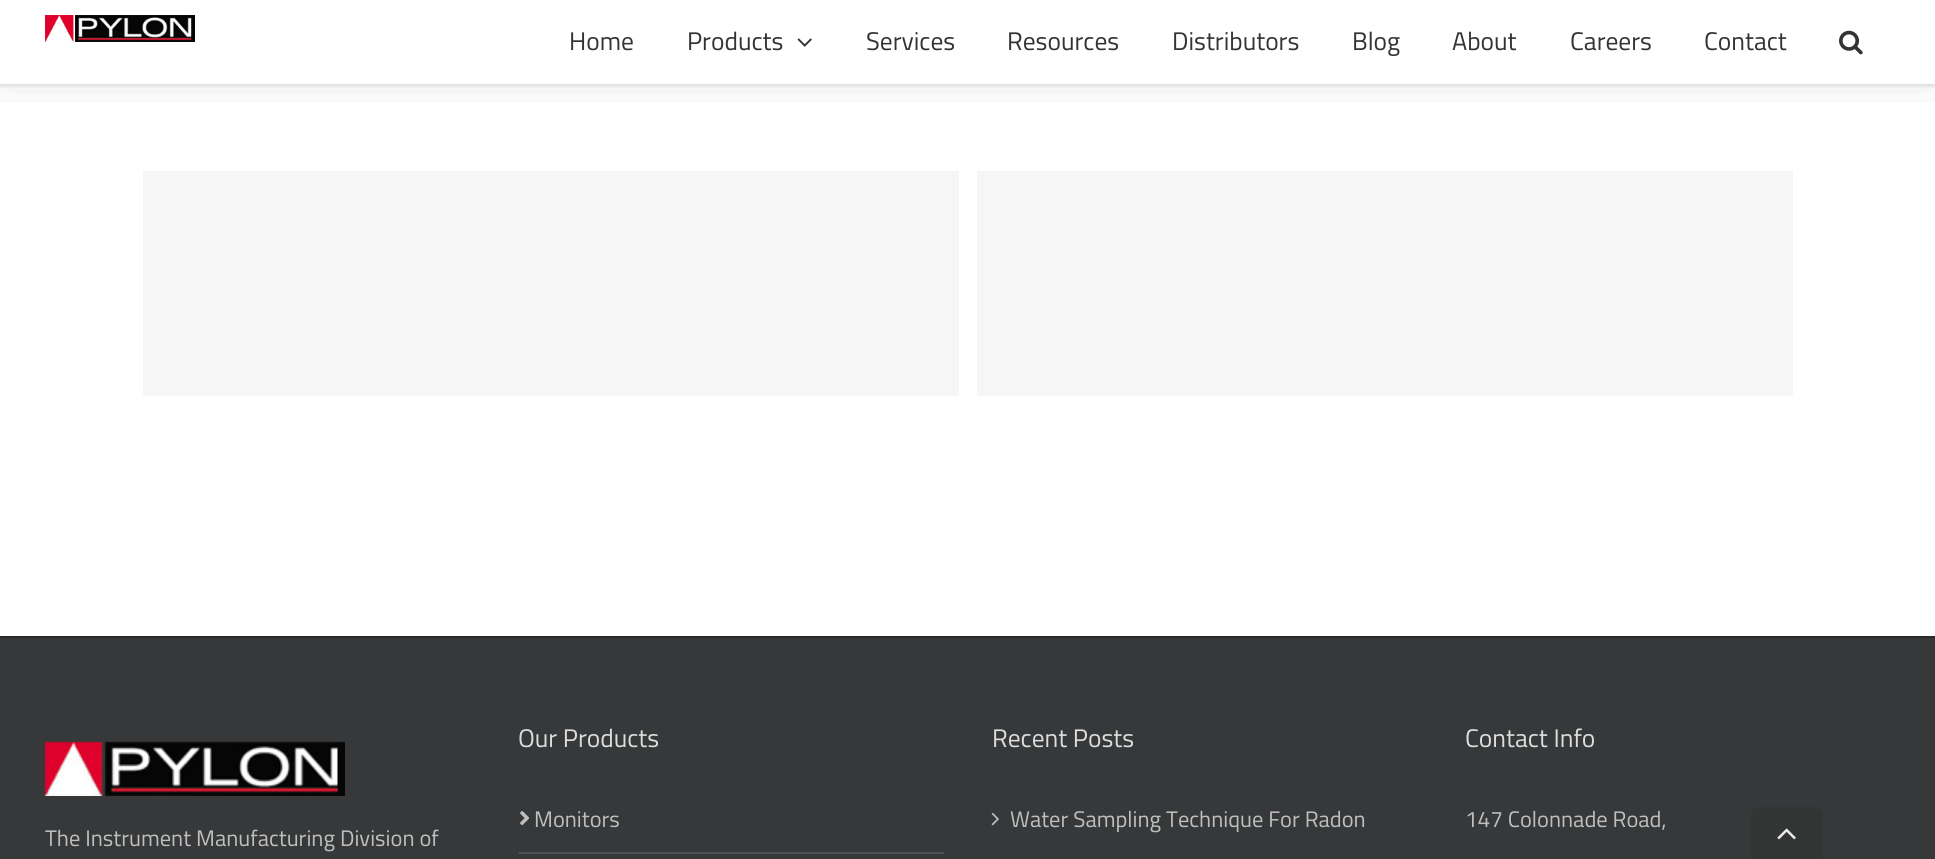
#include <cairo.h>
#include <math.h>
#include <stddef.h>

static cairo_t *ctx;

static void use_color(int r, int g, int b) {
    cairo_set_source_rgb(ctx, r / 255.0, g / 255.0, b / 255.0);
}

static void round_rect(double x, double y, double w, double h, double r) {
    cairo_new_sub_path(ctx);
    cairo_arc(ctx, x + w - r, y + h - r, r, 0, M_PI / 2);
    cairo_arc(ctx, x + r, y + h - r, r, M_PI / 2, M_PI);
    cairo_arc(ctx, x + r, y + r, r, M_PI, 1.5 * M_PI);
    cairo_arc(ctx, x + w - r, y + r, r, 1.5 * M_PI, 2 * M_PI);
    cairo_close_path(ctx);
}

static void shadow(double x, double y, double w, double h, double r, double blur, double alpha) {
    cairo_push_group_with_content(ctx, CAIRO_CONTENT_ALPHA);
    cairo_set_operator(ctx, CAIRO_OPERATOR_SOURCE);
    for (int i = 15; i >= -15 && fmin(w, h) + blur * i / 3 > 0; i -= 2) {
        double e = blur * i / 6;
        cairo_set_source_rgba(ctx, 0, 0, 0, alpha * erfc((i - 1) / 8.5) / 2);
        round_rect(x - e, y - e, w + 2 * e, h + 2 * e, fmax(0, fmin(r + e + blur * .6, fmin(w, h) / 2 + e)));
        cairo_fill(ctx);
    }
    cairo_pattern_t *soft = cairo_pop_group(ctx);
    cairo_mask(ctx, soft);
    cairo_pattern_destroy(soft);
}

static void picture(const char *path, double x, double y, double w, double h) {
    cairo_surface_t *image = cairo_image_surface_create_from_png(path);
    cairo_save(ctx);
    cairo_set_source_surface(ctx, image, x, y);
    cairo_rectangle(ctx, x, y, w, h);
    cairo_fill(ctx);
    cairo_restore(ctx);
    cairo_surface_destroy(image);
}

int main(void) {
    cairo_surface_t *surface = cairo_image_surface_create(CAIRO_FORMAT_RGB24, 1935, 859);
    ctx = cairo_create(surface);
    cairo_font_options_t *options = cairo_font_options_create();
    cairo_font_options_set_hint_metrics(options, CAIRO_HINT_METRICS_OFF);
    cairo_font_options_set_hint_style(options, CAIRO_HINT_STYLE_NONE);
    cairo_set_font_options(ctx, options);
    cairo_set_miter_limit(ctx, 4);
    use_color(255, 255, 255);
    cairo_paint(ctx);
    use_color(246, 246, 246);
    cairo_rectangle(ctx, 143, 171, 816, 225);
    cairo_fill(ctx);
    cairo_rectangle(ctx, 977, 171, 816, 225);
    cairo_fill(ctx);
    cairo_save(ctx);
    cairo_rectangle(ctx, 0, 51, 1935, 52);
    cairo_clip(ctx);
    use_color(0, 0, 0);
    shadow(3, -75, 1929, 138, 0, 37.5, 0.14);
    cairo_restore(ctx);
    cairo_save(ctx);
    cairo_rectangle(ctx, 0, 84, 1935, 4);
    cairo_clip(ctx);
    use_color(0, 0, 0);
    shadow(0, 2, 1935, 84, 0, 2, 0.12);
    cairo_restore(ctx);
    cairo_set_source_rgba(ctx, 1, 1, 1, 0.99);
    cairo_rectangle(ctx, 0, 51, 1935, 33);
    cairo_fill(ctx);
    picture("img1.png", 45, 15, 150, 27);
    cairo_select_font_face(ctx, "Titillium Web", CAIRO_FONT_SLANT_NORMAL, CAIRO_FONT_WEIGHT_NORMAL);
    cairo_set_font_size(ctx, 25.5);
    use_color(51, 51, 51);
    cairo_move_to(ctx, 569, 50);
    cairo_show_text(ctx, "Home");
    cairo_move_to(ctx, 687, 50);
    cairo_show_text(ctx, "Products");
    picture("img2.png", 797, 38, 15, 9);
    cairo_move_to(ctx, 866, 50);
    cairo_show_text(ctx, "Services");
    cairo_move_to(ctx, 1007, 50);
    cairo_show_text(ctx, "Resources");
    cairo_move_to(ctx, 1172, 50);
    cairo_show_text(ctx, "Distributors");
    cairo_move_to(ctx, 1352, 50);
    cairo_show_text(ctx, "Blog");
    cairo_move_to(ctx, 1452, 50);
    cairo_show_text(ctx, "About");
    cairo_move_to(ctx, 1570, 50);
    cairo_show_text(ctx, "Careers");
    cairo_move_to(ctx, 1704, 50);
    cairo_show_text(ctx, "Contact");
    picture("img3.png", 1839, 30, 24, 25);
    use_color(54, 56, 57);
    cairo_rectangle(ctx, 0, 638, 1935, 221);
    cairo_fill(ctx);
    use_color(41, 42, 42);
    cairo_rectangle(ctx, 0, 636, 1935, 2);
    cairo_fill(ctx);
    use_color(221, 221, 221);
    cairo_move_to(ctx, 518, 747);
    cairo_show_text(ctx, "Our Products");
    picture("img4.png", 520, 811, 10, 14);
    cairo_set_font_size(ctx, 22.5);
    use_color(191, 191, 191);
    cairo_move_to(ctx, 534, 827);
    cairo_show_text(ctx, "Monitors");
    use_color(80, 81, 82);
    cairo_rectangle(ctx, 519, 852, 425, 2);
    cairo_fill(ctx);
    cairo_set_font_size(ctx, 25.5);
    use_color(221, 221, 221);
    cairo_move_to(ctx, 992, 747);
    cairo_show_text(ctx, "Recent Posts");
    picture("img5.png", 991, 812, 8, 14);
    cairo_set_font_size(ctx, 22.5);
    use_color(191, 191, 191);
    cairo_move_to(ctx, 1010, 827);
    cairo_show_text(ctx, "Water Sampling Technique For Radon");
    cairo_set_font_size(ctx, 25.5);
    use_color(221, 221, 221);
    cairo_move_to(ctx, 1465, 747);
    cairo_show_text(ctx, "Contact Info");
    cairo_set_font_size(ctx, 22.5);
    use_color(191, 191, 191);
    cairo_move_to(ctx, 1465, 827);
    cairo_show_text(ctx, "147 Colonnade Road,");
    picture("img6.png", 45, 741, 300, 55);
    cairo_move_to(ctx, 45, 846);
    cairo_show_text(ctx, "The Instrument Manufacturing Division of");
    use_color(51, 52, 52);
    cairo_new_path(ctx);
    cairo_move_to(ctx, 1760, 807);
    cairo_line_to(ctx, 1814, 807);
    cairo_curve_to(ctx, 1819, 807, 1823, 811, 1823, 816);
    cairo_line_to(ctx, 1823, 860);
    cairo_line_to(ctx, 1751, 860);
    cairo_line_to(ctx, 1751, 816);
    cairo_curve_to(ctx, 1751, 811, 1755, 807, 1760, 807);
    cairo_close_path(ctx);
    cairo_fill(ctx);
    picture("img7.png", 1777, 828, 19, 12);
    cairo_surface_write_to_png(surface, "result.png");
    cairo_font_options_destroy(options);
    cairo_destroy(ctx);
    cairo_surface_destroy(surface);
    return 0;
}
